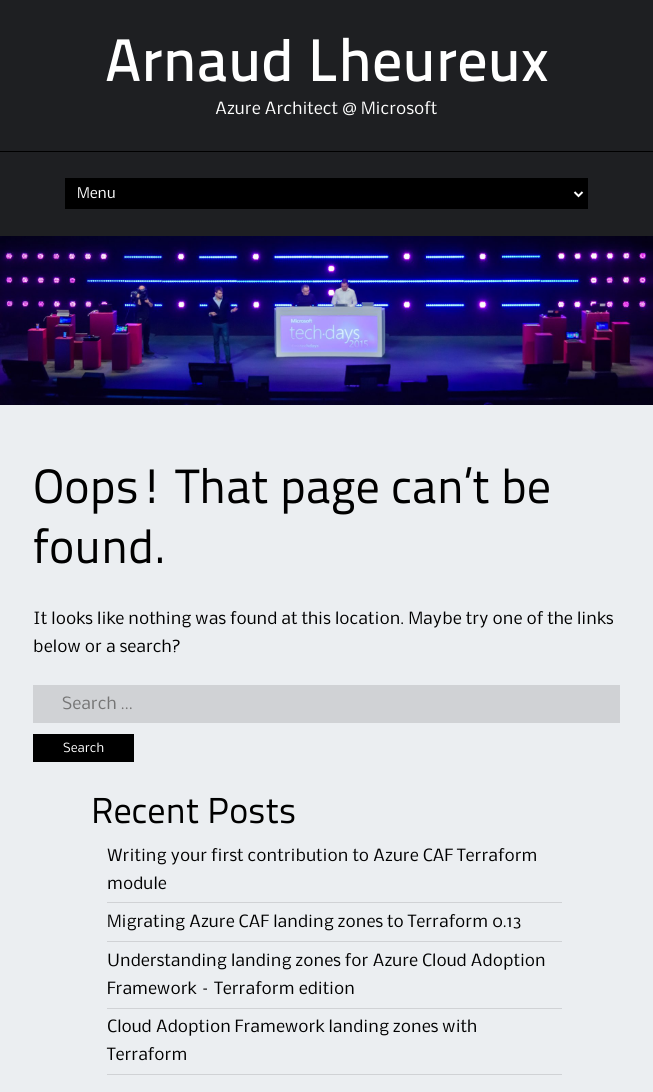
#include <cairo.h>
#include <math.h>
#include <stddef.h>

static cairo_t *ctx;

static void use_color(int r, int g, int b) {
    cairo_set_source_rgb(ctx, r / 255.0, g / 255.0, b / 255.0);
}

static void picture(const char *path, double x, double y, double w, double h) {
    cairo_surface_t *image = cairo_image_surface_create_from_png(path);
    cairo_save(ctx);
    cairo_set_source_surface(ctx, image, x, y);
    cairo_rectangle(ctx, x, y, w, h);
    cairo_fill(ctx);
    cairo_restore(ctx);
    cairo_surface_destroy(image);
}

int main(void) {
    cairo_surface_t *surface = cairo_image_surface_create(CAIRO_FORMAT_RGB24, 653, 1092);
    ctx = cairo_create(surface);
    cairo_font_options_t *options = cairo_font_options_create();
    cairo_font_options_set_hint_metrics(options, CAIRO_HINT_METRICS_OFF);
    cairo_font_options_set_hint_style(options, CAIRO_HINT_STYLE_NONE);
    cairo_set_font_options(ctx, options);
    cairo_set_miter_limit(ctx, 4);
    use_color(235, 238, 241);
    cairo_paint(ctx);
    use_color(30, 31, 34);
    cairo_rectangle(ctx, 0, 0, 653, 236);
    cairo_fill(ctx);
    cairo_select_font_face(ctx, "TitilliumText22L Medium", CAIRO_FONT_SLANT_NORMAL, CAIRO_FONT_WEIGHT_NORMAL);
    cairo_set_font_size(ctx, 60);
    use_color(255, 255, 255);
    cairo_move_to(ctx, 105, 81);
    cairo_show_text(ctx, "Arnaud Lheureux");
    cairo_select_font_face(ctx, "Nobile", CAIRO_FONT_SLANT_NORMAL, CAIRO_FONT_WEIGHT_NORMAL);
    cairo_set_font_size(ctx, 16);
    cairo_move_to(ctx, 215, 114);
    cairo_show_text(ctx, "Azure Architect @ Microsoft");
    use_color(0, 0, 0);
    cairo_rectangle(ctx, 0, 151, 653, 1);
    cairo_fill(ctx);
    cairo_rectangle(ctx, 65, 178, 523, 31);
    cairo_fill(ctx);
    cairo_new_path(ctx);
    cairo_move_to(ctx, 574.5, 192);
    cairo_line_to(ctx, 578.5, 196);
    cairo_line_to(ctx, 582.5, 192);
    use_color(255, 255, 255);
    cairo_stroke(ctx);
    cairo_set_font_size(ctx, 14);
    cairo_move_to(ctx, 77, 198);
    cairo_show_text(ctx, "Menu");
    picture("img1.png", 0, 236, 653, 169);
    cairo_select_font_face(ctx, "TitilliumText22L", CAIRO_FONT_SLANT_NORMAL, CAIRO_FONT_WEIGHT_NORMAL);
    cairo_set_font_size(ctx, 48);
    use_color(0, 0, 0);
    cairo_move_to(ctx, 33, 503);
    cairo_show_text(ctx, "Oops! That page can’t be");
    cairo_move_to(ctx, 33, 563);
    cairo_show_text(ctx, "found.");
    cairo_select_font_face(ctx, "Nobile", CAIRO_FONT_SLANT_NORMAL, CAIRO_FONT_WEIGHT_NORMAL);
    cairo_set_font_size(ctx, 16);
    cairo_move_to(ctx, 33, 624);
    cairo_show_text(ctx, "It looks like nothing was found at this location. Maybe try one of the links");
    cairo_move_to(ctx, 33, 652);
    cairo_show_text(ctx, "below or a search?");
    use_color(208, 210, 213);
    cairo_rectangle(ctx, 33, 685, 587, 38);
    cairo_fill(ctx);
    use_color(117, 117, 117);
    cairo_move_to(ctx, 62, 709);
    cairo_show_text(ctx, "Search …");
    use_color(0, 0, 0);
    cairo_rectangle(ctx, 33, 734, 101, 28);
    cairo_fill(ctx);
    cairo_set_font_size(ctx, 12);
    use_color(255, 255, 255);
    cairo_move_to(ctx, 63, 752);
    cairo_show_text(ctx, "Search");
    cairo_select_font_face(ctx, "TitilliumText22L", CAIRO_FONT_SLANT_NORMAL, CAIRO_FONT_WEIGHT_NORMAL);
    cairo_set_font_size(ctx, 36);
    use_color(0, 0, 0);
    cairo_move_to(ctx, 91, 823);
    cairo_show_text(ctx, "Recent Posts");
    use_color(208, 210, 213);
    cairo_rectangle(ctx, 107, 902, 455, 1);
    cairo_fill(ctx);
    cairo_select_font_face(ctx, "Nobile", CAIRO_FONT_SLANT_NORMAL, CAIRO_FONT_WEIGHT_NORMAL);
    cairo_set_font_size(ctx, 16);
    use_color(0, 0, 0);
    cairo_move_to(ctx, 107, 861);
    cairo_show_text(ctx, "Writing your first contribution to Azure CAF Terraform");
    cairo_move_to(ctx, 107, 889);
    cairo_show_text(ctx, "module");
    use_color(208, 210, 213);
    cairo_rectangle(ctx, 107, 941, 455, 1);
    cairo_fill(ctx);
    use_color(0, 0, 0);
    cairo_move_to(ctx, 107, 927);
    cairo_show_text(ctx, "Migrating Azure CAF landing zones to Terraform 0.13");
    use_color(208, 210, 213);
    cairo_rectangle(ctx, 107, 1008, 455, 1);
    cairo_fill(ctx);
    use_color(0, 0, 0);
    cairo_move_to(ctx, 107, 966);
    cairo_show_text(ctx, "Understanding landing zones for Azure Cloud Adoption");
    cairo_move_to(ctx, 107, 994);
    cairo_show_text(ctx, "Framework – Terraform edition");
    use_color(208, 210, 213);
    cairo_rectangle(ctx, 107, 1074, 455, 1);
    cairo_fill(ctx);
    use_color(0, 0, 0);
    cairo_move_to(ctx, 107, 1032);
    cairo_show_text(ctx, "Cloud Adoption Framework landing zones with");
    cairo_move_to(ctx, 107, 1060);
    cairo_show_text(ctx, "Terraform");
    cairo_surface_write_to_png(surface, "result.png");
    cairo_font_options_destroy(options);
    cairo_destroy(ctx);
    cairo_surface_destroy(surface);
    return 0;
}
